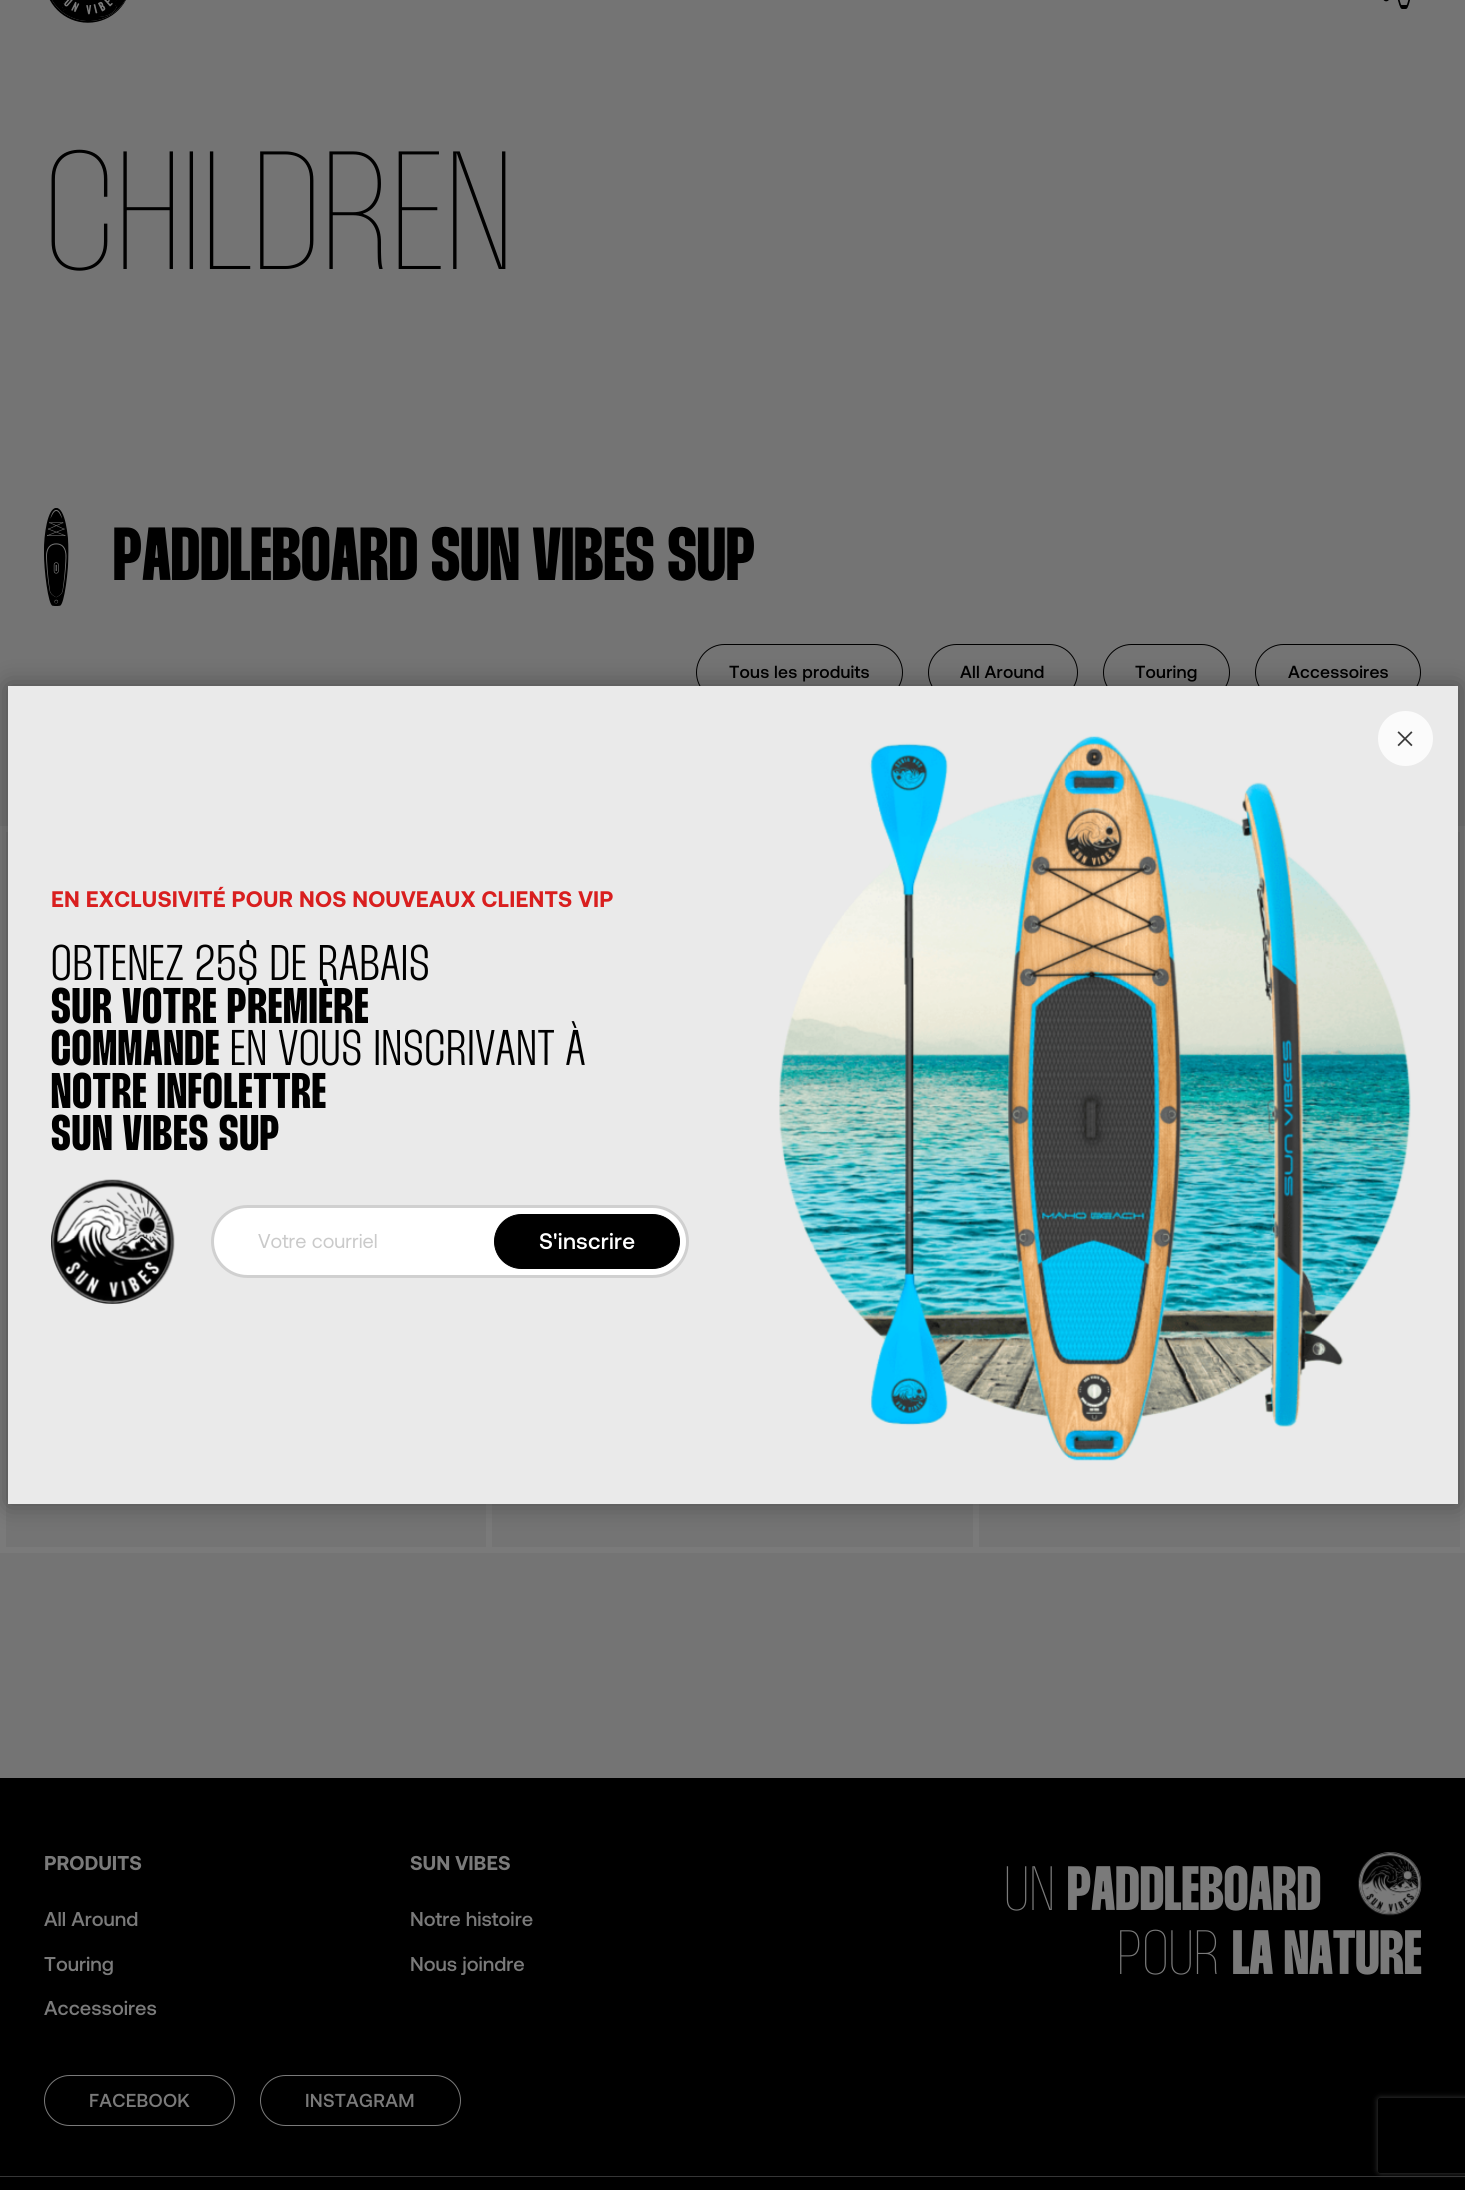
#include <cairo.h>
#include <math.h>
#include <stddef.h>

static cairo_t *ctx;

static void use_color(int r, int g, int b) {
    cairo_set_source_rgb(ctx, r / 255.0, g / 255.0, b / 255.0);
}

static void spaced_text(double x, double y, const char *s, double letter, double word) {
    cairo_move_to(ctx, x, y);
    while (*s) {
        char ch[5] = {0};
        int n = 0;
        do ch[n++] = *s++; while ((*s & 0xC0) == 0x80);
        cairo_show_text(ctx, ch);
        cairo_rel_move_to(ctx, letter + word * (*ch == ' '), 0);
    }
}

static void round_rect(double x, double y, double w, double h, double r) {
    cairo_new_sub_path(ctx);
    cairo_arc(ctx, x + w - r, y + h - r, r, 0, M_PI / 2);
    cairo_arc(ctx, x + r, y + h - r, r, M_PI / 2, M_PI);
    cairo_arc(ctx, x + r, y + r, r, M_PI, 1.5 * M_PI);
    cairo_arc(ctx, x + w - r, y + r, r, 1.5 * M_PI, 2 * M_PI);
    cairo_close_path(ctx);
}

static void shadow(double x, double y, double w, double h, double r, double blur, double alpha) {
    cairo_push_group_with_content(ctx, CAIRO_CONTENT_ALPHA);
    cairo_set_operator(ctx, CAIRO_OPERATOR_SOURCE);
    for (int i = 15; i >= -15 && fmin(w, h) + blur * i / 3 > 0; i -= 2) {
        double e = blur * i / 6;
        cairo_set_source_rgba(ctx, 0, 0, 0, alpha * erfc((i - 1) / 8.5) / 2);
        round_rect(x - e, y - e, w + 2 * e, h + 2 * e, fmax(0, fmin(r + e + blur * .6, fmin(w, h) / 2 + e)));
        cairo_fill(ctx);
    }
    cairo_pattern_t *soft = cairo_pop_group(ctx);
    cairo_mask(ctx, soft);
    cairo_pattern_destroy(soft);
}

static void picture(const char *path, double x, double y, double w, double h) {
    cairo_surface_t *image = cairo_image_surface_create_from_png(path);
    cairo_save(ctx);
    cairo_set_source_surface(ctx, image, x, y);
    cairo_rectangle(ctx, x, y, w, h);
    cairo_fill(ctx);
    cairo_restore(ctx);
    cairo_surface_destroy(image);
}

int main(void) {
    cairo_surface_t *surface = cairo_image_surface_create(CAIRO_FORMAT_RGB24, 1465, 2190);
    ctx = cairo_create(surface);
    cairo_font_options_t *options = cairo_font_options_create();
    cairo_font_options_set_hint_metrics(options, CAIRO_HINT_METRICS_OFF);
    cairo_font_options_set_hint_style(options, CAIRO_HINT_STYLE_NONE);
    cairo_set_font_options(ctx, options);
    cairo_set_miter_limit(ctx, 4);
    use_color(116, 116, 116);
    cairo_paint(ctx);
    picture("img1.png", 49, 0, 77, 23);
    picture("img2.png", 1383, 0, 27, 9);
    cairo_select_font_face(ctx, "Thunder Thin", CAIRO_FONT_SLANT_NORMAL, CAIRO_FONT_WEIGHT_NORMAL);
    cairo_set_font_size(ctx, 168);
    use_color(0, 0, 0);
    cairo_move_to(ctx, 44, 269);
    cairo_show_text(ctx, "CHILDREN");
    picture("img3.png", 44, 508, 25, 98);
    cairo_select_font_face(ctx, "Thunder", CAIRO_FONT_SLANT_NORMAL, CAIRO_FONT_WEIGHT_BOLD);
    cairo_set_font_size(ctx, 75);
    cairo_move_to(ctx, 113, 580);
    cairo_show_text(ctx, "PADDLEBOARD SUN VIBES SUP");
    round_rect(696.5, 644.5, 206, 56, 28);
    cairo_set_line_width(ctx, 1);
    cairo_stroke(ctx);
    cairo_select_font_face(ctx, "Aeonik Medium", CAIRO_FONT_SLANT_NORMAL, CAIRO_FONT_WEIGHT_NORMAL);
    cairo_set_font_size(ctx, 17.5);
    spaced_text(729, 678, "Tous les produits", 0.2, 0);
    round_rect(928.5, 644.5, 149, 56, 28);
    cairo_stroke(ctx);
    spaced_text(960, 678, "All Around", 0.2, 0);
    round_rect(1103.5, 644.5, 126, 56, 28);
    cairo_stroke(ctx);
    spaced_text(1135, 678, "Touring", 0.2, 0);
    round_rect(1255.5, 644.5, 165, 56, 28);
    cairo_stroke(ctx);
    spaced_text(1288, 678, "Accessoires", 0.2, 0);
    cairo_rectangle(ctx, 1.5, 827.5, 1462, 724);
    use_color(122, 122, 122);
    cairo_set_line_width(ctx, 3);
    cairo_stroke(ctx);
    cairo_rectangle(ctx, 4.5, 830.5, 483, 718);
    cairo_stroke(ctx);
    cairo_rectangle(ctx, 490.5, 830.5, 484, 718);
    cairo_stroke(ctx);
    cairo_rectangle(ctx, 977.5, 830.5, 484, 718);
    cairo_stroke(ctx);
    use_color(0, 0, 0);
    cairo_rectangle(ctx, 0, 1778, 1465, 412);
    cairo_fill(ctx);
    cairo_select_font_face(ctx, "Aeonik", CAIRO_FONT_SLANT_NORMAL, CAIRO_FONT_WEIGHT_BOLD);
    cairo_set_font_size(ctx, 20);
    use_color(122, 122, 122);
    cairo_move_to(ctx, 44, 1870);
    cairo_show_text(ctx, "PRODUITS");
    cairo_select_font_face(ctx, "Aeonik Medium", CAIRO_FONT_SLANT_NORMAL, CAIRO_FONT_WEIGHT_NORMAL);
    cairo_move_to(ctx, 44, 1926);
    cairo_show_text(ctx, "All Around");
    cairo_move_to(ctx, 44, 1971);
    cairo_show_text(ctx, "Touring");
    cairo_move_to(ctx, 44, 2015);
    cairo_show_text(ctx, "Accessoires");
    cairo_select_font_face(ctx, "Aeonik", CAIRO_FONT_SLANT_NORMAL, CAIRO_FONT_WEIGHT_BOLD);
    cairo_move_to(ctx, 410, 1870);
    cairo_show_text(ctx, "SUN VIBES");
    cairo_select_font_face(ctx, "Aeonik Medium", CAIRO_FONT_SLANT_NORMAL, CAIRO_FONT_WEIGHT_NORMAL);
    cairo_move_to(ctx, 410, 1926);
    cairo_show_text(ctx, "Notre histoire");
    cairo_move_to(ctx, 410, 1971);
    cairo_show_text(ctx, "Nous joindre");
    cairo_select_font_face(ctx, "Thunder Thin", CAIRO_FONT_SLANT_NORMAL, CAIRO_FONT_WEIGHT_NORMAL);
    cairo_set_font_size(ctx, 62.5);
    cairo_move_to(ctx, 1004, 1910);
    cairo_show_text(ctx, "UN");
    cairo_select_font_face(ctx, "Thunder", CAIRO_FONT_SLANT_NORMAL, CAIRO_FONT_WEIGHT_BOLD);
    cairo_move_to(ctx, 1067, 1910);
    cairo_show_text(ctx, "PADDLEBOARD");
    picture("img4.png", 1358, 1852, 64, 64);
    cairo_select_font_face(ctx, "Thunder Thin", CAIRO_FONT_SLANT_NORMAL, CAIRO_FONT_WEIGHT_NORMAL);
    cairo_move_to(ctx, 1117, 1974);
    cairo_show_text(ctx, "POUR");
    cairo_select_font_face(ctx, "Thunder", CAIRO_FONT_SLANT_NORMAL, CAIRO_FONT_WEIGHT_BOLD);
    cairo_move_to(ctx, 1232, 1974);
    cairo_show_text(ctx, "LA NATURE");
    round_rect(44.5, 2075.5, 190, 50, 25);
    cairo_set_line_width(ctx, 1);
    cairo_stroke(ctx);
    cairo_select_font_face(ctx, "Aeonik Medium", CAIRO_FONT_SLANT_NORMAL, CAIRO_FONT_WEIGHT_NORMAL);
    cairo_set_font_size(ctx, 18.75);
    spaced_text(89, 2107, "FACEBOOK", 0.25, 0);
    round_rect(260.5, 2075.5, 200, 50, 25);
    cairo_stroke(ctx);
    spaced_text(305, 2107, "INSTAGRAM", 0.25, 0);
    use_color(54, 54, 54);
    cairo_rectangle(ctx, 0, 2176, 1465, 1);
    cairo_fill(ctx);
    use_color(0, 0, 0);
    shadow(8, 686, 1450, 818, 0, 12.5, 0.35);
    use_color(234, 234, 234);
    cairo_rectangle(ctx, 8, 686, 1450, 818);
    cairo_fill(ctx);
    picture("img7.png", 779, 735, 632, 726);
    use_color(251, 251, 251);
    cairo_arc(ctx, 1405.5, 738.5, 27.5, 0, 2 * M_PI);
    cairo_fill(ctx);
    picture("img5.png", 1397, 731, 16, 16);
    cairo_select_font_face(ctx, "Aeonik", CAIRO_FONT_SLANT_NORMAL, CAIRO_FONT_WEIGHT_BOLD);
    cairo_set_font_size(ctx, 22.5);
    use_color(217, 31, 31);
    spaced_text(51, 907, "EN EXCLUSIVITÉ POUR NOS NOUVEAUX CLIENTS VIP", 0.2, 0);
    cairo_select_font_face(ctx, "Thunder Light", CAIRO_FONT_SLANT_NORMAL, CAIRO_FONT_WEIGHT_NORMAL);
    cairo_set_font_size(ctx, 50);
    use_color(0, 0, 0);
    spaced_text(51, 980, "OBTENEZ 25$ DE RABAIS", 1, 0);
    cairo_select_font_face(ctx, "Thunder", CAIRO_FONT_SLANT_NORMAL, CAIRO_FONT_WEIGHT_BOLD);
    spaced_text(51, 1023, "SUR VOTRE PREMIÈRE", 1, 0);
    spaced_text(51, 1065, "COMMANDE", 1, 0);
    cairo_select_font_face(ctx, "Thunder Light", CAIRO_FONT_SLANT_NORMAL, CAIRO_FONT_WEIGHT_NORMAL);
    spaced_text(230, 1065, "EN VOUS INSCRIVANT À", 1, 0);
    cairo_select_font_face(ctx, "Thunder", CAIRO_FONT_SLANT_NORMAL, CAIRO_FONT_WEIGHT_BOLD);
    spaced_text(51, 1108, "NOTRE INFOLETTRE", 1, 0);
    spaced_text(51, 1150, "SUN VIBES SUP", 1, 0);
    picture("img6.png", 51, 1179, 124, 125);
    use_color(255, 255, 255);
    round_rect(212.5, 1206.5, 475, 70, 35);
    cairo_fill_preserve(ctx);
    use_color(208, 208, 208);
    cairo_set_line_width(ctx, 3);
    cairo_stroke(ctx);
    cairo_select_font_face(ctx, "Aeonik", CAIRO_FONT_SLANT_NORMAL, CAIRO_FONT_WEIGHT_NORMAL);
    cairo_set_font_size(ctx, 20);
    use_color(202, 202, 202);
    cairo_move_to(ctx, 258, 1248);
    cairo_show_text(ctx, "Votre courriel");
    use_color(0, 0, 0);
    round_rect(494.5, 1214.5, 185, 54, 27);
    cairo_fill_preserve(ctx);
    cairo_set_line_width(ctx, 1);
    cairo_stroke(ctx);
    cairo_select_font_face(ctx, "Aeonik Medium", CAIRO_FONT_SLANT_NORMAL, CAIRO_FONT_WEIGHT_NORMAL);
    cairo_set_font_size(ctx, 22.5);
    use_color(255, 255, 255);
    spaced_text(539, 1249, "S'inscrire", 0.25, 0);
    cairo_save(ctx);
    cairo_set_fill_rule(ctx, CAIRO_FILL_RULE_EVEN_ODD);
    cairo_new_path(ctx);
    cairo_move_to(ctx, 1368, 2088);
    cairo_line_to(ctx, 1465, 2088);
    cairo_line_to(ctx, 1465, 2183);
    cairo_line_to(ctx, 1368, 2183);
    cairo_close_path(ctx);
    cairo_move_to(ctx, 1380.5, 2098);
    cairo_line_to(ctx, 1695.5, 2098);
    cairo_curve_to(ctx, 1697, 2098, 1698, 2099, 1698, 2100.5);
    cairo_line_to(ctx, 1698, 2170.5);
    cairo_curve_to(ctx, 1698, 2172, 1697, 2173, 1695.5, 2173);
    cairo_line_to(ctx, 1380.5, 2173);
    cairo_curve_to(ctx, 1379, 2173, 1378, 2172, 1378, 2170.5);
    cairo_line_to(ctx, 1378, 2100.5);
    cairo_curve_to(ctx, 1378, 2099, 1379, 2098, 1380.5, 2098);
    cairo_close_path(ctx);
    cairo_clip(ctx);
    use_color(61, 61, 61);
    shadow(1378, 2098, 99, 75, 2.5, 3, 1);
    cairo_restore(ctx);
    cairo_surface_write_to_png(surface, "result.png");
    cairo_font_options_destroy(options);
    cairo_destroy(ctx);
    cairo_surface_destroy(surface);
    return 0;
}
